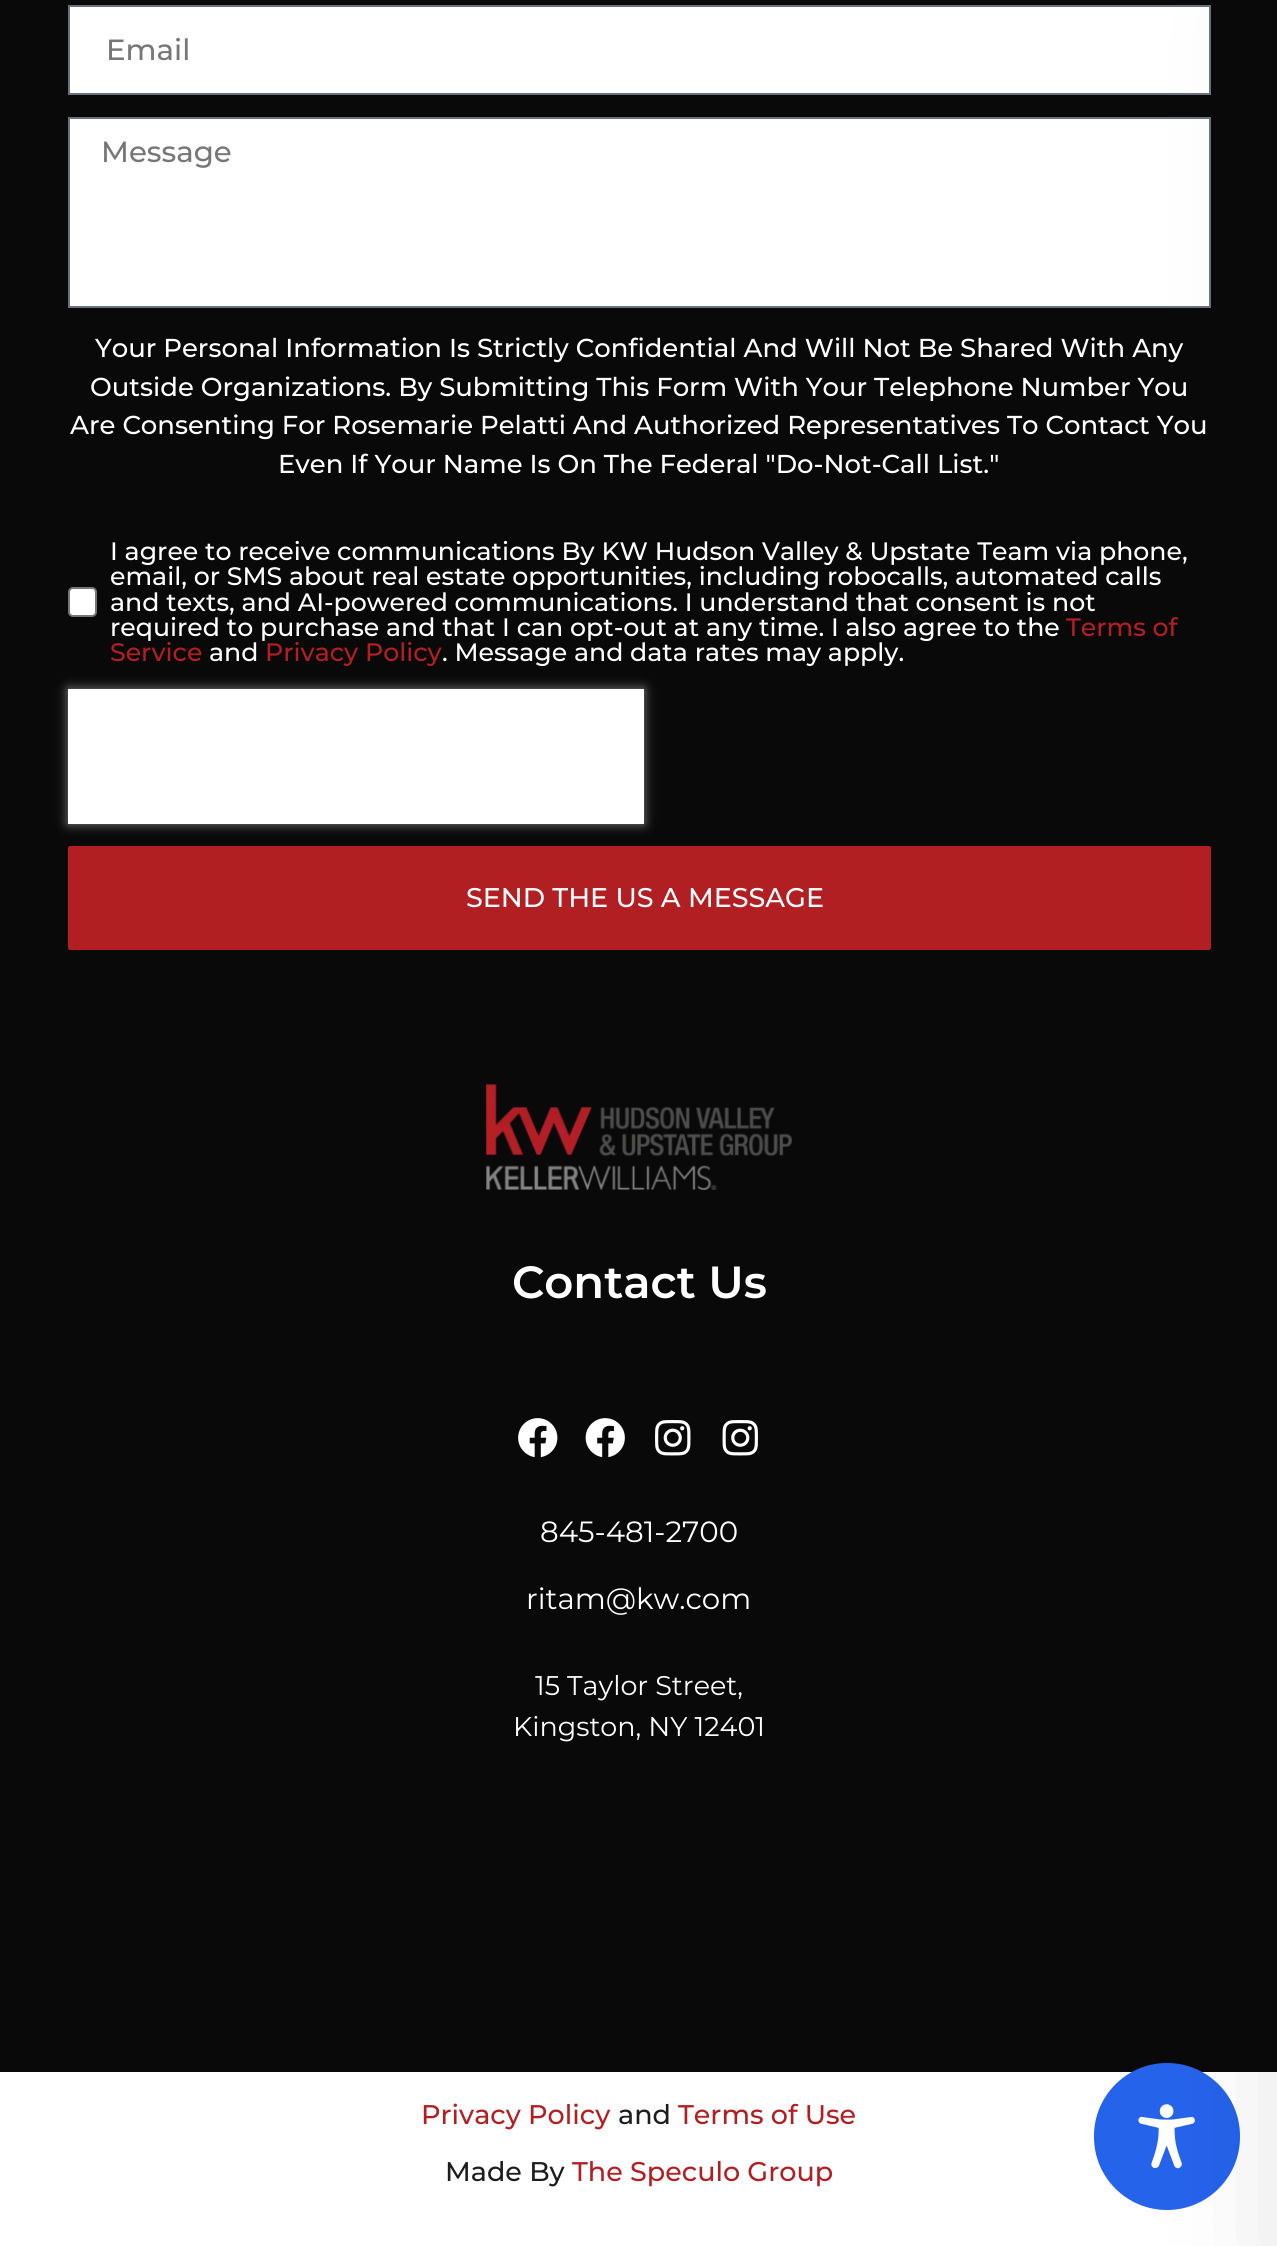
#include <cairo.h>
#include <math.h>
#include <stddef.h>

static cairo_t *ctx;

static void use_color(int r, int g, int b) {
    cairo_set_source_rgb(ctx, r / 255.0, g / 255.0, b / 255.0);
}

static void round_rect(double x, double y, double w, double h, double r) {
    cairo_new_sub_path(ctx);
    cairo_arc(ctx, x + w - r, y + h - r, r, 0, M_PI / 2);
    cairo_arc(ctx, x + r, y + h - r, r, M_PI / 2, M_PI);
    cairo_arc(ctx, x + r, y + r, r, M_PI, 1.5 * M_PI);
    cairo_arc(ctx, x + w - r, y + r, r, 1.5 * M_PI, 2 * M_PI);
    cairo_close_path(ctx);
}

static void shadow(double x, double y, double w, double h, double r, double blur, double alpha) {
    cairo_push_group_with_content(ctx, CAIRO_CONTENT_ALPHA);
    cairo_set_operator(ctx, CAIRO_OPERATOR_SOURCE);
    for (int i = 15; i >= -15 && fmin(w, h) + blur * i / 3 > 0; i -= 2) {
        double e = blur * i / 6;
        cairo_set_source_rgba(ctx, 0, 0, 0, alpha * erfc((i - 1) / 8.5) / 2);
        round_rect(x - e, y - e, w + 2 * e, h + 2 * e, fmax(0, fmin(r + e + blur * .6, fmin(w, h) / 2 + e)));
        cairo_fill(ctx);
    }
    cairo_pattern_t *soft = cairo_pop_group(ctx);
    cairo_mask(ctx, soft);
    cairo_pattern_destroy(soft);
}

static void picture(const char *path, double x, double y, double w, double h) {
    cairo_surface_t *image = cairo_image_surface_create_from_png(path);
    cairo_save(ctx);
    cairo_set_source_surface(ctx, image, x, y);
    cairo_rectangle(ctx, x, y, w, h);
    cairo_fill(ctx);
    cairo_restore(ctx);
    cairo_surface_destroy(image);
}

int main(void) {
    cairo_surface_t *surface = cairo_image_surface_create(CAIRO_FORMAT_RGB24, 1277, 2246);
    ctx = cairo_create(surface);
    cairo_font_options_t *options = cairo_font_options_create();
    cairo_font_options_set_hint_metrics(options, CAIRO_HINT_METRICS_OFF);
    cairo_font_options_set_hint_style(options, CAIRO_HINT_STYLE_NONE);
    cairo_set_font_options(ctx, options);
    cairo_set_miter_limit(ctx, 4);
    use_color(255, 255, 255);
    cairo_paint(ctx);
    use_color(9, 9, 9);
    cairo_rectangle(ctx, 0, 0, 1277, 2072);
    cairo_fill(ctx);
    use_color(255, 255, 255);
    cairo_rectangle(ctx, 69, 6, 1141, 88);
    cairo_fill_preserve(ctx);
    use_color(105, 114, 125);
    cairo_stroke(ctx);
    use_color(255, 255, 255);
    cairo_rectangle(ctx, 69, 118, 1141, 189);
    cairo_fill_preserve(ctx);
    use_color(105, 114, 125);
    cairo_stroke(ctx);
    use_color(178, 31, 35);
    round_rect(68, 846, 1143, 104, 2);
    cairo_fill(ctx);
    use_color(37, 99, 235);
    round_rect(1094, 2063, 146, 147, 73);
    cairo_fill(ctx);
    picture("img6.png", 1138, 2104, 57, 65);
    use_color(0, 0, 0);
    shadow(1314, 23, 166, 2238, 0, 67.5, 0.2);
    cairo_select_font_face(ctx, "Montserrat Medium", CAIRO_FONT_SLANT_NORMAL, CAIRO_FONT_WEIGHT_NORMAL);
    cairo_set_font_size(ctx, 29.25);
    use_color(119, 119, 119);
    cairo_move_to(ctx, 106, 60);
    cairo_show_text(ctx, "Email");
    cairo_move_to(ctx, 101, 162);
    cairo_show_text(ctx, "Message");
    cairo_set_font_size(ctx, 25.9);
    use_color(255, 255, 255);
    cairo_move_to(ctx, 95, 357);
    cairo_show_text(ctx, "Your Personal Information Is Strictly Confidential And Will Not Be Shared With Any");
    cairo_move_to(ctx, 90, 396);
    cairo_show_text(ctx, "Outside Organizations. By Submitting This Form With Your Telephone Number You");
    cairo_move_to(ctx, 70, 434);
    cairo_show_text(ctx, "Are Consenting For Rosemarie Pelatti And Authorized Representatives To Contact You");
    cairo_move_to(ctx, 278, 473);
    cairo_show_text(ctx, "Even If Your Name Is On The Federal \"Do-Not-Call List.\"");
    round_rect(69, 588, 27, 28, 4);
    cairo_fill_preserve(ctx);
    use_color(118, 118, 118);
    cairo_stroke(ctx);
    cairo_set_font_size(ctx, 25.2);
    use_color(255, 255, 255);
    cairo_move_to(ctx, 110, 560);
    cairo_show_text(ctx, "I agree to receive communications By KW Hudson Valley & Upstate Team via phone,");
    cairo_move_to(ctx, 110, 585);
    cairo_show_text(ctx, "email, or SMS about real estate opportunities, including robocalls, automated calls");
    cairo_move_to(ctx, 110, 611);
    cairo_show_text(ctx, "and texts, and AI-powered communications. I understand that consent is not");
    cairo_move_to(ctx, 110, 636);
    cairo_show_text(ctx, "required to purchase and that I can opt-out at any time. I also agree to the");
    use_color(178, 31, 35);
    cairo_move_to(ctx, 1066, 636);
    cairo_show_text(ctx, "Terms of");
    cairo_move_to(ctx, 110, 661);
    cairo_show_text(ctx, "Service");
    use_color(255, 255, 255);
    cairo_move_to(ctx, 209, 661);
    cairo_show_text(ctx, "and");
    use_color(178, 31, 35);
    cairo_move_to(ctx, 265, 661);
    cairo_show_text(ctx, "Privacy Policy");
    use_color(255, 255, 255);
    cairo_move_to(ctx, 442, 661);
    cairo_show_text(ctx, ". Message and data rates may apply.");
    cairo_rectangle(ctx, 68, 689, 576, 135);
    cairo_fill(ctx);
    cairo_save(ctx);
    cairo_set_fill_rule(ctx, CAIRO_FILL_RULE_EVEN_ODD);
    cairo_new_path(ctx);
    cairo_move_to(ctx, 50, 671);
    cairo_line_to(ctx, 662, 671);
    cairo_line_to(ctx, 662, 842);
    cairo_line_to(ctx, 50, 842);
    cairo_close_path(ctx);
    cairo_move_to(ctx, 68, 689);
    cairo_line_to(ctx, 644, 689);
    cairo_line_to(ctx, 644, 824);
    cairo_line_to(ctx, 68, 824);
    cairo_close_path(ctx);
    cairo_clip(ctx);
    use_color(128, 128, 128);
    shadow(68, 689, 576, 135, 0, 5.5, 1);
    cairo_restore(ctx);
    cairo_set_font_size(ctx, 27);
    cairo_move_to(ctx, 466, 907);
    cairo_show_text(ctx, "SEND THE US A MESSAGE");
    picture("img1.png", 486, 1084, 306, 106);
    cairo_select_font_face(ctx, "Montserrat SemiBold", CAIRO_FONT_SLANT_NORMAL, CAIRO_FONT_WEIGHT_NORMAL);
    cairo_set_font_size(ctx, 45);
    cairo_move_to(ctx, 512, 1298);
    cairo_show_text(ctx, "Contact Us");
    picture("img2.png", 518, 1418, 40, 40);
    picture("img3.png", 585, 1418, 40, 40);
    picture("img4.png", 655, 1420, 36, 36);
    picture("img5.png", 722, 1420, 36, 36);
    cairo_select_font_face(ctx, "Montserrat", CAIRO_FONT_SLANT_NORMAL, CAIRO_FONT_WEIGHT_NORMAL);
    cairo_set_font_size(ctx, 29.25);
    cairo_move_to(ctx, 540, 1542);
    cairo_show_text(ctx, "845-481-2700");
    cairo_move_to(ctx, 526, 1609);
    cairo_show_text(ctx, "ritam@kw.com");
    cairo_set_font_size(ctx, 27);
    cairo_move_to(ctx, 535, 1695);
    cairo_show_text(ctx, "15 Taylor Street,");
    cairo_move_to(ctx, 513, 1736);
    cairo_show_text(ctx, "Kingston, NY 12401");
    cairo_select_font_face(ctx, "Montserrat Medium", CAIRO_FONT_SLANT_NORMAL, CAIRO_FONT_WEIGHT_NORMAL);
    use_color(178, 31, 35);
    cairo_move_to(ctx, 421, 2124);
    cairo_show_text(ctx, "Privacy Policy");
    use_color(29, 29, 29);
    cairo_move_to(ctx, 618, 2124);
    cairo_show_text(ctx, "and");
    use_color(178, 31, 35);
    cairo_move_to(ctx, 678, 2124);
    cairo_show_text(ctx, "Terms of Use");
    use_color(29, 29, 29);
    cairo_move_to(ctx, 445, 2181);
    cairo_show_text(ctx, "Made By");
    use_color(178, 31, 35);
    cairo_move_to(ctx, 572, 2181);
    cairo_show_text(ctx, "The Speculo Group");
    cairo_surface_write_to_png(surface, "result.png");
    cairo_font_options_destroy(options);
    cairo_destroy(ctx);
    cairo_surface_destroy(surface);
    return 0;
}
